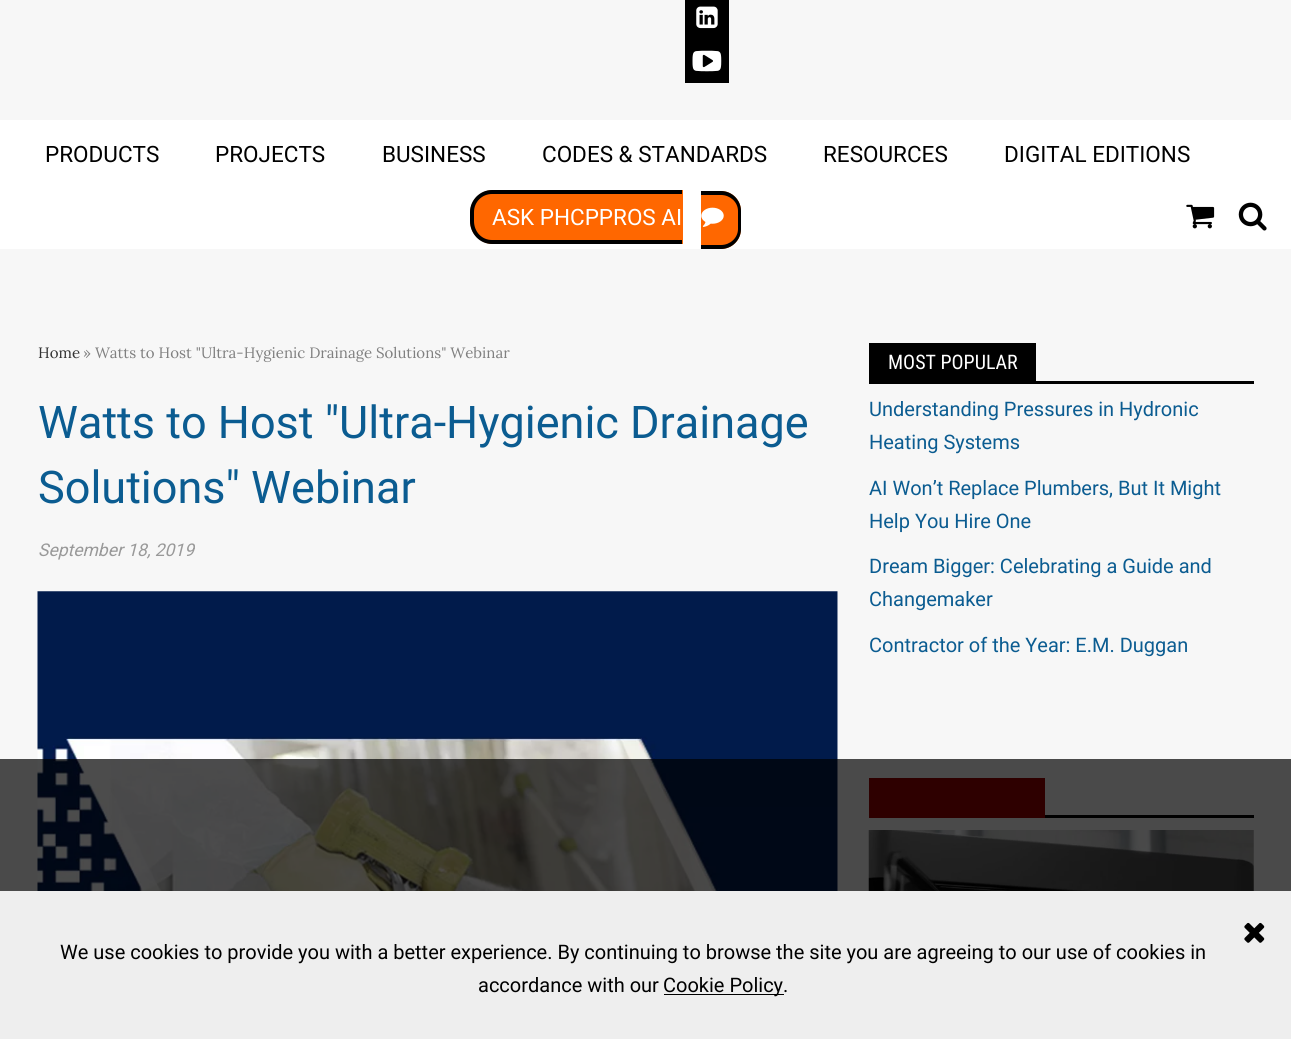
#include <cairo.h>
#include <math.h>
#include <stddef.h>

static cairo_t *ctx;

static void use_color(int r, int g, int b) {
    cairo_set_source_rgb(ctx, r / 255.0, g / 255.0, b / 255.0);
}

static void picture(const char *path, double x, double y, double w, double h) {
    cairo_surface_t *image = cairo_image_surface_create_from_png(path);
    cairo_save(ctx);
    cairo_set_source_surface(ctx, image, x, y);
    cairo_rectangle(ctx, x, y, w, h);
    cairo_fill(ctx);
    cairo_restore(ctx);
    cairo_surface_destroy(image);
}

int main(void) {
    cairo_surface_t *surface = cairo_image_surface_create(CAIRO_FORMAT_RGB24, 1291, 1039);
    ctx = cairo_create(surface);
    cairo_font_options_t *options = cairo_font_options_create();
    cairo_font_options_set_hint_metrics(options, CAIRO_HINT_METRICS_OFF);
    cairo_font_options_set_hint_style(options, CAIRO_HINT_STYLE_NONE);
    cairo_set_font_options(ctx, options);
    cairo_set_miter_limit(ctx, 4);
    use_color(247, 247, 247);
    cairo_paint(ctx);
    use_color(0, 0, 0);
    cairo_rectangle(ctx, 685, 0, 44, 83);
    cairo_fill(ctx);
    picture("img1.png", 696, 6, 22, 23);
    picture("img2.png", 692, 50, 30, 22);
    use_color(255, 255, 255);
    cairo_rectangle(ctx, 0, 120, 1291, 129);
    cairo_fill(ctx);
    cairo_select_font_face(ctx, "Roboto", CAIRO_FONT_SLANT_NORMAL, CAIRO_FONT_WEIGHT_NORMAL);
    cairo_set_font_size(ctx, 22.5);
    use_color(0, 0, 0);
    cairo_move_to(ctx, 45, 162);
    cairo_show_text(ctx, "PRODUCTS");
    cairo_move_to(ctx, 215, 162);
    cairo_show_text(ctx, "PROJECTS");
    cairo_move_to(ctx, 382, 162);
    cairo_show_text(ctx, "BUSINESS");
    cairo_move_to(ctx, 542, 162);
    cairo_show_text(ctx, "CODES & STANDARDS");
    cairo_move_to(ctx, 823, 162);
    cairo_show_text(ctx, "RESOURCES");
    cairo_move_to(ctx, 1004, 162);
    cairo_show_text(ctx, "DIGITAL EDITIONS");
    use_color(255, 103, 0);
    cairo_new_path(ctx);
    cairo_move_to(ctx, 493, 190);
    cairo_line_to(ctx, 683, 190);
    cairo_line_to(ctx, 683, 244);
    cairo_line_to(ctx, 493, 244);
    cairo_curve_to(ctx, 480.5, 244, 470, 233.5, 470, 221);
    cairo_line_to(ctx, 470, 213);
    cairo_curve_to(ctx, 470, 200.5, 480.5, 190, 493, 190);
    cairo_close_path(ctx);
    cairo_fill(ctx);
    use_color(0, 0, 0);
    cairo_set_fill_rule(ctx, CAIRO_FILL_RULE_EVEN_ODD);
    cairo_new_path(ctx);
    cairo_move_to(ctx, 492, 190);
    cairo_line_to(ctx, 682, 190);
    cairo_line_to(ctx, 682, 244);
    cairo_line_to(ctx, 492, 244);
    cairo_curve_to(ctx, 480, 244, 470, 234, 470, 221);
    cairo_line_to(ctx, 470, 212);
    cairo_curve_to(ctx, 470, 200, 480, 190, 492, 190);
    cairo_close_path(ctx);
    cairo_move_to(ctx, 492, 194);
    cairo_line_to(ctx, 682, 194);
    cairo_line_to(ctx, 682, 240);
    cairo_line_to(ctx, 492, 240);
    cairo_curve_to(ctx, 482, 240, 474, 232, 474, 221);
    cairo_line_to(ctx, 474, 212);
    cairo_curve_to(ctx, 474, 202, 482, 194, 492, 194);
    cairo_close_path(ctx);
    cairo_fill(ctx);
    use_color(255, 103, 0);
    cairo_new_path(ctx);
    cairo_move_to(ctx, 701, 191);
    cairo_line_to(ctx, 721, 191);
    cairo_curve_to(ctx, 732, 191, 741, 200, 741, 211);
    cairo_line_to(ctx, 741, 229);
    cairo_curve_to(ctx, 741, 240, 732, 249, 721, 249);
    cairo_line_to(ctx, 701, 249);
    cairo_close_path(ctx);
    cairo_fill(ctx);
    use_color(0, 0, 0);
    cairo_new_path(ctx);
    cairo_move_to(ctx, 701, 191);
    cairo_line_to(ctx, 721, 191);
    cairo_curve_to(ctx, 732, 191, 741, 200, 741, 211);
    cairo_line_to(ctx, 741, 229);
    cairo_curve_to(ctx, 741, 240, 732, 249, 721, 249);
    cairo_line_to(ctx, 701, 249);
    cairo_close_path(ctx);
    cairo_move_to(ctx, 701, 195);
    cairo_line_to(ctx, 721, 195);
    cairo_curve_to(ctx, 730, 195, 738, 202, 738, 211);
    cairo_line_to(ctx, 738, 229);
    cairo_curve_to(ctx, 738, 238, 730, 245, 721, 245);
    cairo_line_to(ctx, 701, 245);
    cairo_close_path(ctx);
    cairo_fill(ctx);
    use_color(255, 255, 255);
    cairo_move_to(ctx, 492, 225);
    cairo_show_text(ctx, "ASK PHCPPROS AI");
    picture("img3.png", 701, 207, 23, 20);
    picture("img4.png", 1186, 204, 29, 25);
    picture("img5.png", 1238, 202, 29, 29);
    cairo_select_font_face(ctx, "Lora", CAIRO_FONT_SLANT_NORMAL, CAIRO_FONT_WEIGHT_NORMAL);
    cairo_set_font_size(ctx, 15);
    use_color(51, 51, 51);
    cairo_move_to(ctx, 38, 358);
    cairo_show_text(ctx, "Home");
    use_color(128, 128, 128);
    cairo_move_to(ctx, 83, 358);
    cairo_show_text(ctx, "» Watts to Host \"Ultra-Hygienic Drainage Solutions\" Webinar");
    cairo_select_font_face(ctx, "Roboto", CAIRO_FONT_SLANT_NORMAL, CAIRO_FONT_WEIGHT_NORMAL);
    cairo_set_font_size(ctx, 45);
    use_color(11, 92, 145);
    cairo_move_to(ctx, 38, 438);
    cairo_show_text(ctx, "Watts to Host \"Ultra-Hygienic Drainage");
    cairo_move_to(ctx, 38, 503);
    cairo_show_text(ctx, "Solutions\" Webinar");
    cairo_select_font_face(ctx, "Roboto", CAIRO_FONT_SLANT_ITALIC, CAIRO_FONT_WEIGHT_NORMAL);
    cairo_set_font_size(ctx, 17.5);
    use_color(153, 153, 153);
    cairo_move_to(ctx, 38, 556);
    cairo_show_text(ctx, "September 18, 2019");
    use_color(253, 253, 253);
    cairo_rectangle(ctx, 38, 591, 800, 300);
    cairo_fill(ctx);
    picture("img6.png", 37, 591, 801, 300);
    use_color(0, 0, 0);
    cairo_rectangle(ctx, 869, 343, 167, 41);
    cairo_fill(ctx);
    cairo_select_font_face(ctx, "Roboto Condensed", CAIRO_FONT_SLANT_NORMAL, CAIRO_FONT_WEIGHT_NORMAL);
    cairo_set_font_size(ctx, 20);
    use_color(255, 255, 255);
    cairo_move_to(ctx, 888, 369);
    cairo_show_text(ctx, "MOST POPULAR");
    use_color(0, 0, 0);
    cairo_rectangle(ctx, 1036, 381, 218, 3);
    cairo_fill(ctx);
    cairo_select_font_face(ctx, "Roboto", CAIRO_FONT_SLANT_NORMAL, CAIRO_FONT_WEIGHT_NORMAL);
    use_color(11, 92, 145);
    cairo_move_to(ctx, 869, 416);
    cairo_show_text(ctx, "Understanding Pressures in Hydronic");
    cairo_move_to(ctx, 869, 449);
    cairo_show_text(ctx, "Heating Systems");
    cairo_move_to(ctx, 869, 495);
    cairo_show_text(ctx, "AI Won’t Replace Plumbers, But It Might");
    cairo_move_to(ctx, 869, 528);
    cairo_show_text(ctx, "Help You Hire One");
    cairo_move_to(ctx, 869, 573);
    cairo_show_text(ctx, "Dream Bigger: Celebrating a Guide and");
    cairo_move_to(ctx, 869, 606);
    cairo_show_text(ctx, "Changemaker");
    cairo_move_to(ctx, 869, 652);
    cairo_show_text(ctx, "Contractor of the Year: E.M. Duggan");
    use_color(0, 0, 0);
    cairo_rectangle(ctx, 1045, 815, 209, 3);
    cairo_fill(ctx);
    use_color(153, 0, 0);
    cairo_rectangle(ctx, 869, 778, 176, 40);
    cairo_fill(ctx);
    picture("img7.png", 868, 830, 386, 61);
    cairo_set_source_rgba(ctx, 0, 0, 0, 0.7);
    cairo_rectangle(ctx, 0, 759, 1291, 132);
    cairo_fill(ctx);
    use_color(238, 238, 238);
    cairo_rectangle(ctx, 0, 891, 1291, 148);
    cairo_fill(ctx);
    picture("img8.png", 1244, 922, 21, 21);
    use_color(0, 0, 0);
    cairo_move_to(ctx, 60, 959);
    cairo_show_text(ctx, "We use cookies to provide you with a better experience. By continuing to browse the site you are agreeing to our use of cookies in");
    cairo_move_to(ctx, 478, 992);
    cairo_show_text(ctx, "accordance with our");
    cairo_rectangle(ctx, 664, 994, 120, 1);
    cairo_fill(ctx);
    cairo_move_to(ctx, 663, 992);
    cairo_show_text(ctx, "Cookie Policy.");
    cairo_surface_write_to_png(surface, "result.png");
    cairo_font_options_destroy(options);
    cairo_destroy(ctx);
    cairo_surface_destroy(surface);
    return 0;
}
